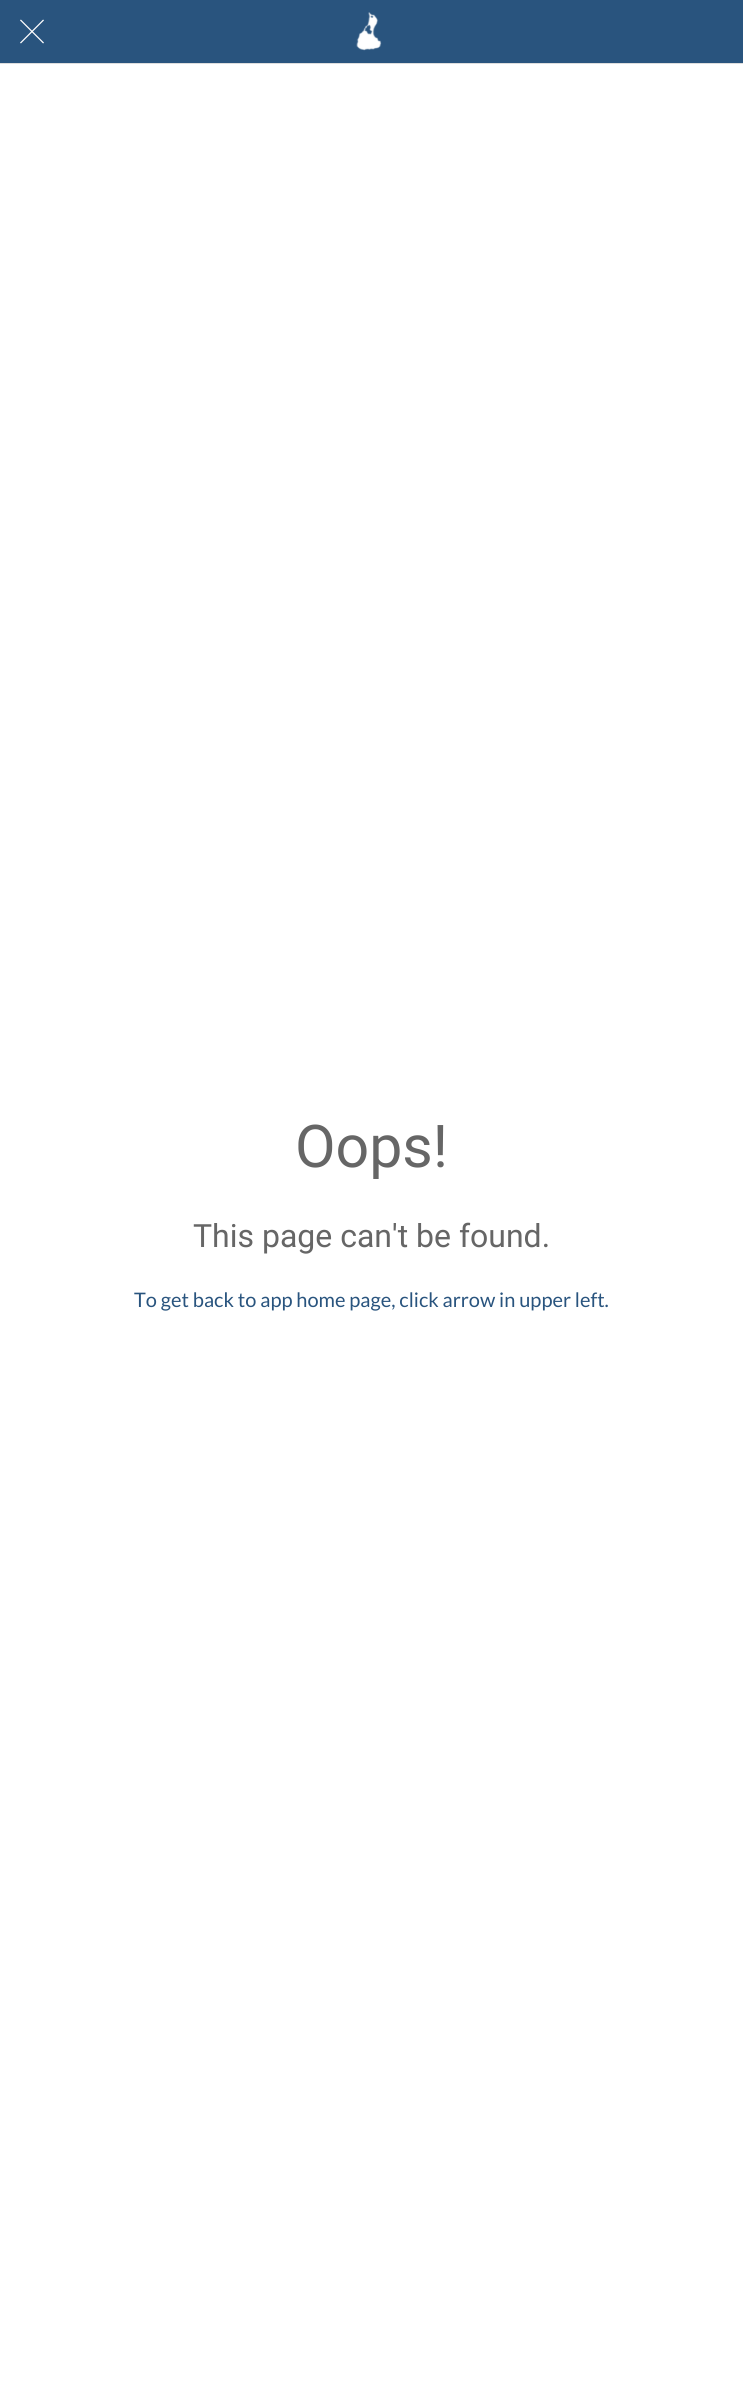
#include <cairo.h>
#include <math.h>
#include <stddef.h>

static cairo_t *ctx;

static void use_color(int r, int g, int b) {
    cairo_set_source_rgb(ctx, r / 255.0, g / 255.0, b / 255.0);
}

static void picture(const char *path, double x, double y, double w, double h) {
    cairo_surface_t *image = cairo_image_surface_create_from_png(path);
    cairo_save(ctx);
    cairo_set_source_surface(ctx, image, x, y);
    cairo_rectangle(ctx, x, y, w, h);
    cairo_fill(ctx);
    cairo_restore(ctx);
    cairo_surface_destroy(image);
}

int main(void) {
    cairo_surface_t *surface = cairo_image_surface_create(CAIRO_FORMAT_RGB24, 743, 2382);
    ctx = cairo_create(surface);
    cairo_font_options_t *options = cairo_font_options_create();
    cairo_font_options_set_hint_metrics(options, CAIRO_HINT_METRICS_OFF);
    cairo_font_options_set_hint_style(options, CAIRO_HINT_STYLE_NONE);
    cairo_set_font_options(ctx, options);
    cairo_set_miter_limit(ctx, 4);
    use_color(255, 255, 255);
    cairo_paint(ctx);
    use_color(41, 84, 126);
    cairo_rectangle(ctx, 0, 0, 743, 63);
    cairo_fill(ctx);
    use_color(221, 221, 221);
    cairo_rectangle(ctx, 0, 63, 743, 1);
    cairo_fill(ctx);
    picture("img1.png", 20, 19, 24, 25);
    picture("img2.png", 356, 12, 26, 39);
    cairo_select_font_face(ctx, "Roboto", CAIRO_FONT_SLANT_NORMAL, CAIRO_FONT_WEIGHT_NORMAL);
    cairo_set_font_size(ctx, 59);
    use_color(102, 102, 102);
    cairo_move_to(ctx, 295, 1167);
    cairo_show_text(ctx, "Oops!");
    cairo_set_font_size(ctx, 32);
    cairo_move_to(ctx, 193, 1247);
    cairo_show_text(ctx, "This page can't be found.");
    cairo_select_font_face(ctx, "Lato", CAIRO_FONT_SLANT_NORMAL, CAIRO_FONT_WEIGHT_NORMAL);
    cairo_set_font_size(ctx, 20);
    use_color(41, 84, 126);
    cairo_move_to(ctx, 134, 1307);
    cairo_show_text(ctx, "To get back to app home page, click arrow in upper left.");
    cairo_surface_write_to_png(surface, "result.png");
    cairo_font_options_destroy(options);
    cairo_destroy(ctx);
    cairo_surface_destroy(surface);
    return 0;
}
